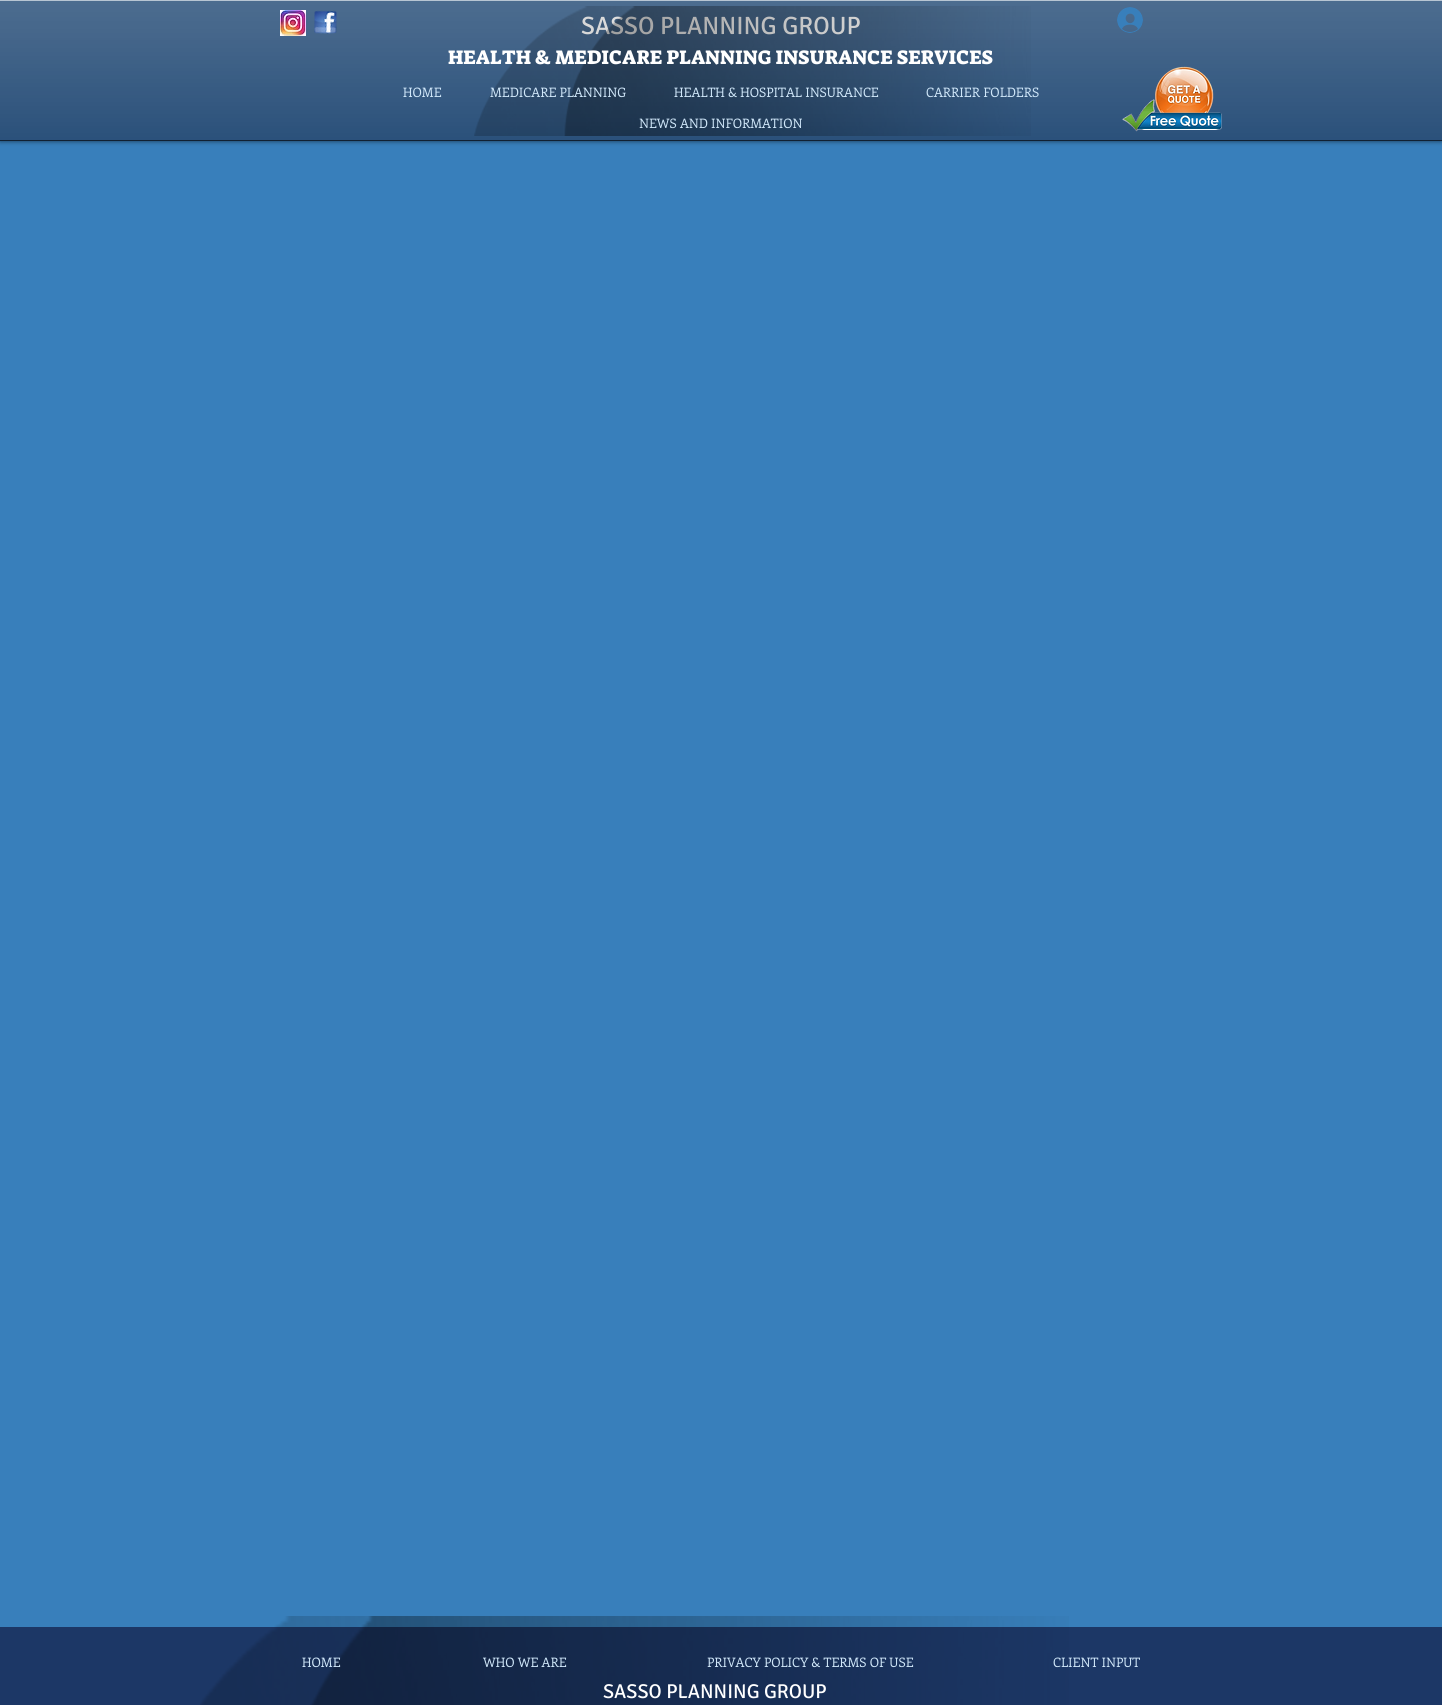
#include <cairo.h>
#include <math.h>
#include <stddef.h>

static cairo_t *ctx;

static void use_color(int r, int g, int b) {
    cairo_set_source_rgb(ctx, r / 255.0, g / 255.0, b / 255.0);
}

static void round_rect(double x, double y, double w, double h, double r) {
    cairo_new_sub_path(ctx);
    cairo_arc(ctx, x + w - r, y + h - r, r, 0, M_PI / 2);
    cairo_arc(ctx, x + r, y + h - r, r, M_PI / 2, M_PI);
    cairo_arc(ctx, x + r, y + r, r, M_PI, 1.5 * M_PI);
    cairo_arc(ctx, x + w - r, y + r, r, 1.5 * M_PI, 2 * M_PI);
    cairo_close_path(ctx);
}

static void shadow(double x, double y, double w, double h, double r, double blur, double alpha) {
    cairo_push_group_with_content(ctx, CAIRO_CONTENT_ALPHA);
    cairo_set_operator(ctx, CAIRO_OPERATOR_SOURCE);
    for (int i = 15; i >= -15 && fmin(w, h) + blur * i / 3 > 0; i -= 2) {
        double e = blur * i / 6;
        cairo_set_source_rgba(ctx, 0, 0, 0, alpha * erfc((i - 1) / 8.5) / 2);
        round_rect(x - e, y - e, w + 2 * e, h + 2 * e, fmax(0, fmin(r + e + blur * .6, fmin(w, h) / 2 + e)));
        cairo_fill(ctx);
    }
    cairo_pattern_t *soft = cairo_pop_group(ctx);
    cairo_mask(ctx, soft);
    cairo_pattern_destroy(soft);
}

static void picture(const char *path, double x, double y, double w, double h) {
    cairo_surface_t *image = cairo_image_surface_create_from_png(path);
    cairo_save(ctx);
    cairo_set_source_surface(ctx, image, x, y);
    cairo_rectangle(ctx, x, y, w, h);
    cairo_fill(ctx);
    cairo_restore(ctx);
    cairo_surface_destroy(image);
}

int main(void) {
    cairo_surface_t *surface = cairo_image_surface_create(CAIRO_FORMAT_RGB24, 1442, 1705);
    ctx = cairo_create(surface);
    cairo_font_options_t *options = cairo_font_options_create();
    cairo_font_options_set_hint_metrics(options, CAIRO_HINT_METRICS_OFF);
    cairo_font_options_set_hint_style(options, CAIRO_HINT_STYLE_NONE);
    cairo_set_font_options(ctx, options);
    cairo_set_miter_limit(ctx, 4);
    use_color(56, 127, 187);
    cairo_paint(ctx);
    use_color(0, 0, 0);
    shadow(0, 0, 1442, 141, 0, 2.5, 0.6);
    use_color(15, 58, 105);
    cairo_rectangle(ctx, 0, 1, 1442, 139);
    cairo_fill(ctx);
    picture("img1.png", 0, 1, 1442, 139);
    use_color(17, 32, 49);
    cairo_rectangle(ctx, 0, 140, 1442, 1);
    cairo_fill(ctx);
    use_color(184, 197, 211);
    cairo_rectangle(ctx, 0, 0, 1442, 1);
    cairo_fill(ctx);
    picture("img2.png", 280, 10, 26, 26);
    picture("img3.png", 314, 10, 23, 24);
    cairo_select_font_face(ctx, "Signika", CAIRO_FONT_SLANT_NORMAL, CAIRO_FONT_WEIGHT_NORMAL);
    cairo_set_font_size(ctx, 25);
    use_color(255, 255, 255);
    cairo_move_to(ctx, 581, 34);
    cairo_show_text(ctx, "SASSO PLANNING GROUP");
    picture("img4.png", 474, 6, 557, 130);
    picture("img5.png", 1117, 7, 26, 26);
    cairo_select_font_face(ctx, "Suez One", CAIRO_FONT_SLANT_NORMAL, CAIRO_FONT_WEIGHT_NORMAL);
    cairo_set_font_size(ctx, 20);
    cairo_move_to(ctx, 448, 64);
    cairo_show_text(ctx, "HEALTH & MEDICARE PLANNING INSURANCE SERVICES");
    cairo_select_font_face(ctx, "Enriqueta", CAIRO_FONT_SLANT_NORMAL, CAIRO_FONT_WEIGHT_NORMAL);
    cairo_set_font_size(ctx, 13);
    use_color(208, 231, 249);
    cairo_move_to(ctx, 403, 97);
    cairo_show_text(ctx, "HOME");
    cairo_move_to(ctx, 490, 97);
    cairo_show_text(ctx, "MEDICARE PLANNING");
    cairo_move_to(ctx, 674, 97);
    cairo_show_text(ctx, "HEALTH & HOSPITAL INSURANCE");
    cairo_move_to(ctx, 926, 97);
    cairo_show_text(ctx, "CARRIER FOLDERS");
    picture("img6.png", 1155, 66, 59, 49);
    use_color(255, 255, 255);
    round_rect(1140, 115, 80, 15, 5);
    cairo_fill(ctx);
    picture("img7.png", 1122, 99, 100, 33);
    use_color(208, 231, 249);
    cairo_move_to(ctx, 639, 128);
    cairo_show_text(ctx, "NEWS AND INFORMATION");
    use_color(28, 55, 102);
    cairo_rectangle(ctx, 0, 1627, 1442, 78);
    cairo_fill(ctx);
    picture("img8.png", 200, 1616, 869, 89);
    use_color(208, 231, 249);
    cairo_move_to(ctx, 302, 1667);
    cairo_show_text(ctx, "HOME");
    cairo_move_to(ctx, 483, 1667);
    cairo_show_text(ctx, "WHO WE ARE");
    cairo_move_to(ctx, 707, 1667);
    cairo_show_text(ctx, "PRIVACY POLICY & TERMS OF USE");
    cairo_move_to(ctx, 1053, 1667);
    cairo_show_text(ctx, "CLIENT INPUT");
    cairo_select_font_face(ctx, "Signika", CAIRO_FONT_SLANT_NORMAL, CAIRO_FONT_WEIGHT_NORMAL);
    cairo_set_font_size(ctx, 20);
    use_color(255, 255, 255);
    cairo_move_to(ctx, 603, 1698);
    cairo_show_text(ctx, "SASSO PLANNING GROUP");
    cairo_surface_write_to_png(surface, "result.png");
    cairo_font_options_destroy(options);
    cairo_destroy(ctx);
    cairo_surface_destroy(surface);
    return 0;
}
